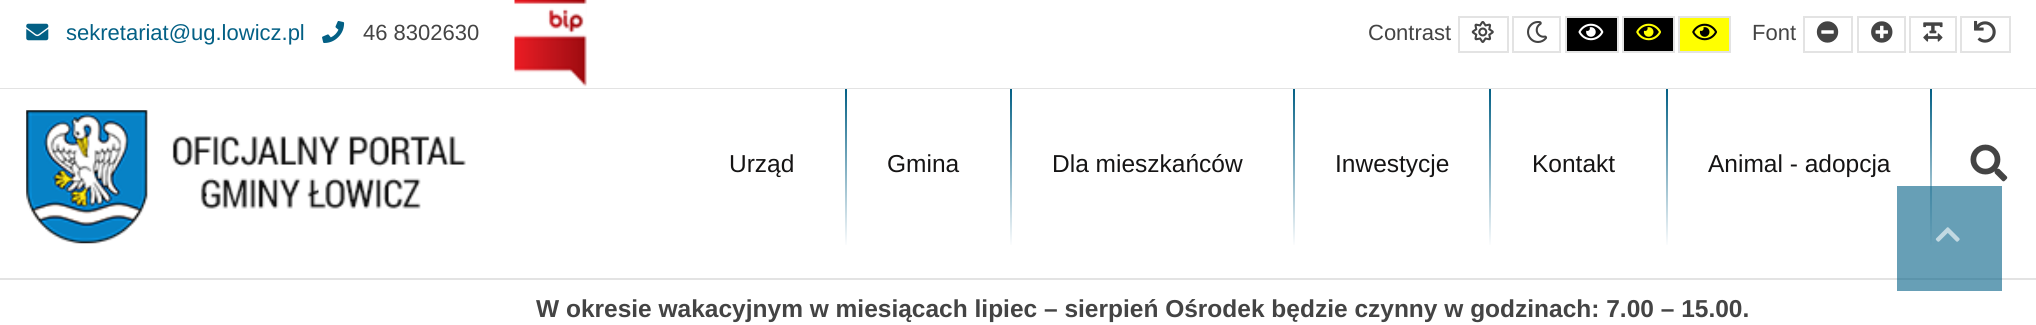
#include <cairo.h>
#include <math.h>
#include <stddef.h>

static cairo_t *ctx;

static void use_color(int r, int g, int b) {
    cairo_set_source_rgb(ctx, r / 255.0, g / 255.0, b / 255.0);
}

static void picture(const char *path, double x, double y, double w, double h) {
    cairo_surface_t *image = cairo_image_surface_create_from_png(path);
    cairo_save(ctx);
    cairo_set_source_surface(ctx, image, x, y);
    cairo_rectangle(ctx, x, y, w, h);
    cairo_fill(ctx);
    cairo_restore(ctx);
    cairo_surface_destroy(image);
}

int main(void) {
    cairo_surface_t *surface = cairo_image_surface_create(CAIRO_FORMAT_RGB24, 2036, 325);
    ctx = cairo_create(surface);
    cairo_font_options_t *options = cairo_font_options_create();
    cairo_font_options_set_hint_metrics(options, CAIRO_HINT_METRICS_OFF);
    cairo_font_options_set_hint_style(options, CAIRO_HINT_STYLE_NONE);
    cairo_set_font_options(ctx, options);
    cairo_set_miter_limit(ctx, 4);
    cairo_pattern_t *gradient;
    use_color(255, 255, 255);
    cairo_paint(ctx);
    use_color(227, 227, 227);
    cairo_rectangle(ctx, 0, 278, 2036, 2);
    cairo_fill(ctx);
    cairo_rectangle(ctx, 0, 88, 2036, 1);
    cairo_fill(ctx);
    picture("img1.png", 26, 23, 23, 18);
    cairo_select_font_face(ctx, "Liberation Sans", CAIRO_FONT_SLANT_NORMAL, CAIRO_FONT_WEIGHT_NORMAL);
    cairo_set_font_size(ctx, 22);
    use_color(3, 96, 133);
    cairo_move_to(ctx, 66, 40);
    cairo_show_text(ctx, "sekretariat@ug.lowicz.pl");
    picture("img2.png", 322, 21, 23, 22);
    use_color(68, 68, 68);
    cairo_move_to(ctx, 363, 40);
    cairo_show_text(ctx, "46 8302630");
    picture("img3.png", 514, 0, 73, 87);
    cairo_move_to(ctx, 1368, 40);
    cairo_show_text(ctx, "Contrast");
    cairo_rectangle(ctx, 1459, 17, 49, 35);
    use_color(227, 227, 227);
    cairo_stroke(ctx);
    picture("img4.png", 1471, 21, 23, 22);
    cairo_rectangle(ctx, 1513, 17, 47, 35);
    cairo_stroke(ctx);
    picture("img5.png", 1527, 21, 21, 22);
    use_color(0, 0, 0);
    cairo_rectangle(ctx, 1566, 17, 52, 35);
    cairo_fill_preserve(ctx);
    use_color(227, 227, 227);
    cairo_stroke(ctx);
    picture("img6.png", 1578, 23, 26, 18);
    use_color(0, 0, 0);
    cairo_rectangle(ctx, 1623, 17, 51, 35);
    cairo_fill_preserve(ctx);
    use_color(227, 227, 227);
    cairo_stroke(ctx);
    picture("img7.png", 1636, 23, 25, 18);
    use_color(255, 255, 0);
    cairo_rectangle(ctx, 1679, 17, 51, 35);
    cairo_fill_preserve(ctx);
    use_color(227, 227, 227);
    cairo_stroke(ctx);
    picture("img8.png", 1692, 23, 25, 18);
    use_color(68, 68, 68);
    cairo_move_to(ctx, 1752, 40);
    cairo_show_text(ctx, "Font");
    cairo_rectangle(ctx, 1804, 17, 48, 35);
    use_color(227, 227, 227);
    cairo_stroke(ctx);
    picture("img9.png", 1816, 21, 23, 22);
    cairo_rectangle(ctx, 1858, 17, 47, 35);
    cairo_stroke(ctx);
    picture("img10.png", 1871, 21, 22, 22);
    cairo_rectangle(ctx, 1910, 17, 46, 35);
    cairo_stroke(ctx);
    picture("img11.png", 1923, 22, 20, 20);
    cairo_rectangle(ctx, 1961, 17, 49, 35);
    cairo_stroke(ctx);
    picture("img12.png", 1974, 20, 22, 23);
    picture("img13.png", 26, 110, 440, 134);
    gradient = cairo_pattern_create_linear(1310, 89, 1310, 247);
    cairo_pattern_add_color_stop_rgba(gradient, 0, 0.012, 0.376, 0.522, 1);
    cairo_pattern_add_color_stop_rgba(gradient, 1, 1, 1, 1, 1);
    cairo_set_source(ctx, gradient);
    cairo_pattern_destroy(gradient);
    cairo_rectangle(ctx, 845, 89, 1087, 156);
    cairo_fill(ctx);
    cairo_set_font_size(ctx, 24.5);
    use_color(21, 20, 20);
    cairo_move_to(ctx, 729, 172);
    cairo_show_text(ctx, "Urząd");
    use_color(255, 255, 255);
    cairo_rectangle(ctx, 847, 89, 163, 156);
    cairo_fill(ctx);
    use_color(21, 20, 20);
    cairo_move_to(ctx, 887, 172);
    cairo_show_text(ctx, "Gmina");
    use_color(255, 255, 255);
    cairo_rectangle(ctx, 1012, 89, 281, 156);
    cairo_fill(ctx);
    use_color(21, 20, 20);
    cairo_move_to(ctx, 1052, 172);
    cairo_show_text(ctx, "Dla mieszkańców");
    use_color(255, 255, 255);
    cairo_rectangle(ctx, 1295, 89, 194, 156);
    cairo_fill(ctx);
    use_color(21, 20, 20);
    cairo_move_to(ctx, 1335, 172);
    cairo_show_text(ctx, "Inwestycje");
    use_color(255, 255, 255);
    cairo_rectangle(ctx, 1491, 89, 175, 156);
    cairo_fill(ctx);
    use_color(21, 20, 20);
    cairo_move_to(ctx, 1532, 172);
    cairo_show_text(ctx, "Kontakt");
    use_color(255, 255, 255);
    cairo_rectangle(ctx, 1668, 89, 262, 156);
    cairo_fill(ctx);
    use_color(21, 20, 20);
    cairo_move_to(ctx, 1708, 172);
    cairo_show_text(ctx, "Animal - adopcja");
    picture("img14.png", 1970, 144, 38, 38);
    cairo_set_source_rgba(ctx, 0.012, 0.376, 0.522, 0.6);
    cairo_rectangle(ctx, 1897, 186, 105, 105);
    cairo_fill(ctx);
    picture("img15.png", 1935, 227, 25, 15);
    cairo_select_font_face(ctx, "Liberation Sans", CAIRO_FONT_SLANT_NORMAL, CAIRO_FONT_WEIGHT_BOLD);
    use_color(68, 68, 68);
    cairo_move_to(ctx, 536, 317);
    cairo_show_text(ctx, "W okresie wakacyjnym w miesiącach lipiec – sierpień Ośrodek będzie czynny w godzinach: 7.00 – 15.00.");
    cairo_surface_write_to_png(surface, "result.png");
    cairo_font_options_destroy(options);
    cairo_destroy(ctx);
    cairo_surface_destroy(surface);
    return 0;
}
